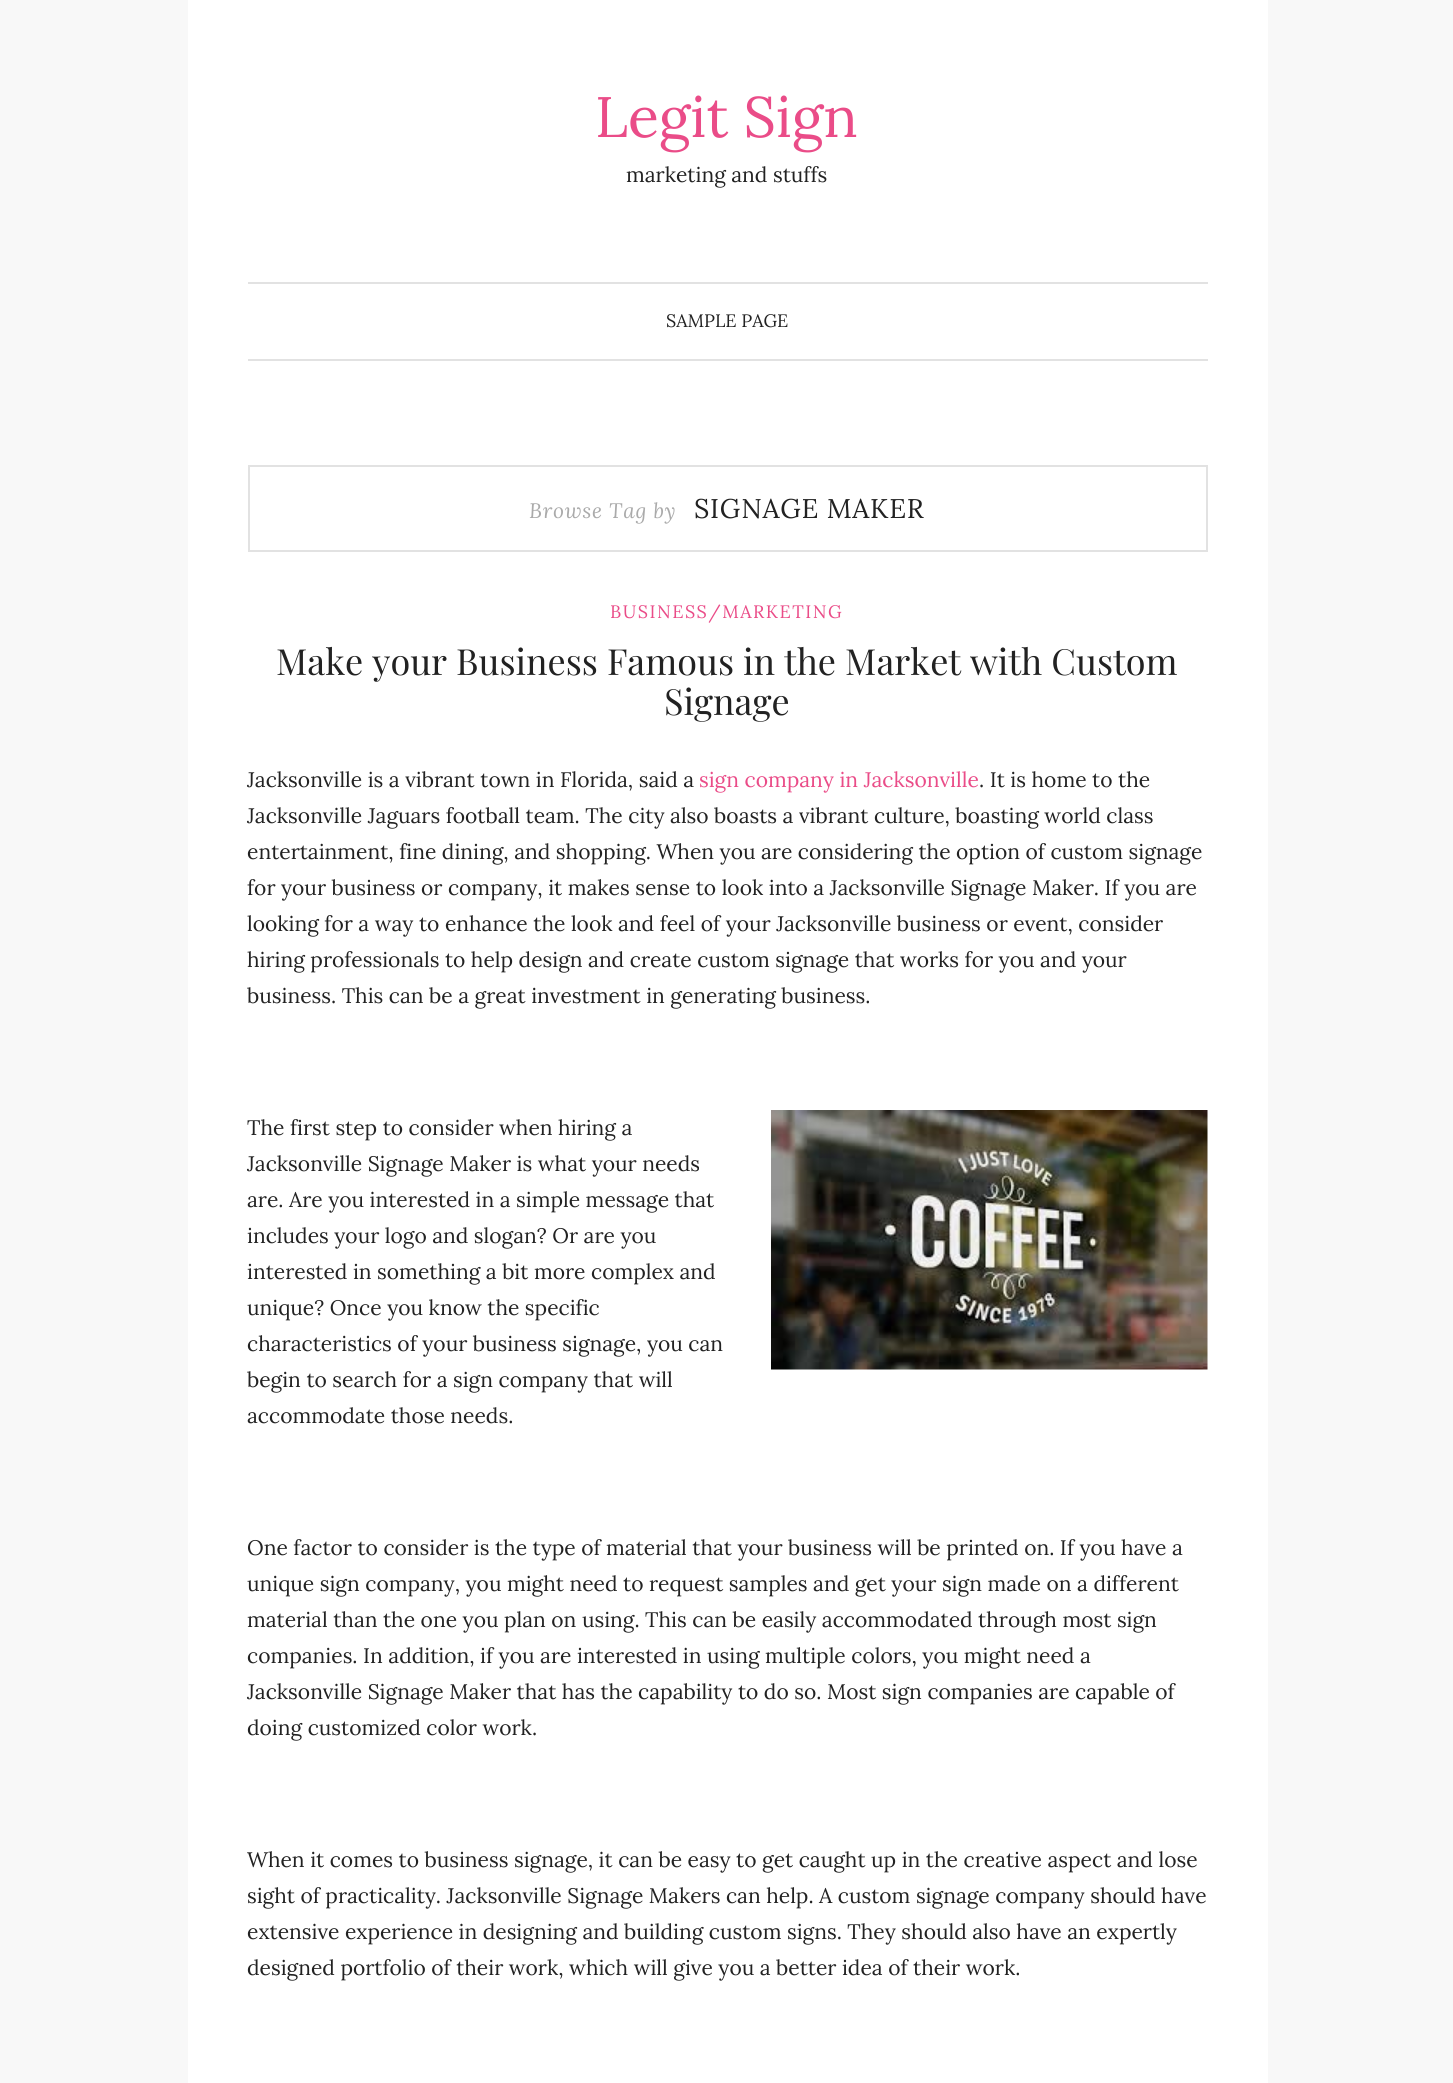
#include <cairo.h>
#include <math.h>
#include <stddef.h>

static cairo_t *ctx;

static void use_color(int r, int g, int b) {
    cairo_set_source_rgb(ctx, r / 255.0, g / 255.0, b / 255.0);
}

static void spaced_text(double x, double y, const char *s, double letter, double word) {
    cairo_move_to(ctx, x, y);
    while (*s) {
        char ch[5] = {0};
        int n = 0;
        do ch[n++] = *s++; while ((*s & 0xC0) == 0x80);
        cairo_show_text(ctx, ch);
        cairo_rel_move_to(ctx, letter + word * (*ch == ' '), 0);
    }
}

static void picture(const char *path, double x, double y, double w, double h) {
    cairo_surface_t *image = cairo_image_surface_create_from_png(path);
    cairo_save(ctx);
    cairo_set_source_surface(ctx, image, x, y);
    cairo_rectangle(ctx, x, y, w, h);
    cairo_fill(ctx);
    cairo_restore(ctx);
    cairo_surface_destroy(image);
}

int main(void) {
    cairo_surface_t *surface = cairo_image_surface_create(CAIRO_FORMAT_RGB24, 1453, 2083);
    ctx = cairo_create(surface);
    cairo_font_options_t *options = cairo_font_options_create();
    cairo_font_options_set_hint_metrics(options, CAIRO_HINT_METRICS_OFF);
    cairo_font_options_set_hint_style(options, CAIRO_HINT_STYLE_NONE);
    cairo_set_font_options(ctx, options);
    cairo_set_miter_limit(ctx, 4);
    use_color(248, 248, 248);
    cairo_paint(ctx);
    use_color(255, 255, 255);
    cairo_rectangle(ctx, 188, 0, 1080, 2083);
    cairo_fill(ctx);
    cairo_select_font_face(ctx, "Lora", CAIRO_FONT_SLANT_NORMAL, CAIRO_FONT_WEIGHT_NORMAL);
    cairo_set_font_size(ctx, 57);
    use_color(234, 76, 136);
    cairo_move_to(ctx, 595, 137);
    cairo_show_text(ctx, "Legit Sign");
    cairo_set_font_size(ctx, 21);
    use_color(34, 34, 34);
    cairo_move_to(ctx, 626, 182);
    cairo_show_text(ctx, "marketing and stuffs");
    use_color(226, 226, 226);
    cairo_rectangle(ctx, 248, 282, 960, 2);
    cairo_fill(ctx);
    cairo_rectangle(ctx, 248, 359, 960, 2);
    cairo_fill(ctx);
    cairo_set_font_size(ctx, 18);
    use_color(34, 34, 34);
    cairo_move_to(ctx, 666, 327);
    cairo_show_text(ctx, "SAMPLE PAGE");
    cairo_rectangle(ctx, 249, 466, 958, 85);
    use_color(226, 226, 226);
    cairo_stroke(ctx);
    cairo_select_font_face(ctx, "Lora", CAIRO_FONT_SLANT_ITALIC, CAIRO_FONT_WEIGHT_NORMAL);
    cairo_set_font_size(ctx, 21);
    use_color(170, 170, 170);
    spaced_text(529, 518, "Browse Tag by", 0.75, 0);
    cairo_select_font_face(ctx, "Lora", CAIRO_FONT_SLANT_NORMAL, CAIRO_FONT_WEIGHT_NORMAL);
    cairo_set_font_size(ctx, 27);
    use_color(34, 34, 34);
    spaced_text(694, 518, "SIGNAGE MAKER", 0.75, 0);
    cairo_set_font_size(ctx, 18);
    use_color(234, 76, 136);
    spaced_text(610, 618, "BUSINESS/MARKETING", 1.5, 0);
    cairo_select_font_face(ctx, "Playfair Display", CAIRO_FONT_SLANT_NORMAL, CAIRO_FONT_WEIGHT_NORMAL);
    cairo_set_font_size(ctx, 36);
    use_color(34, 34, 34);
    cairo_move_to(ctx, 276, 675);
    cairo_show_text(ctx, "Make your Business Famous in the Market with Custom");
    cairo_move_to(ctx, 664, 715);
    cairo_show_text(ctx, "Signage");
    cairo_select_font_face(ctx, "Lora", CAIRO_FONT_SLANT_NORMAL, CAIRO_FONT_WEIGHT_NORMAL);
    cairo_set_font_size(ctx, 21);
    cairo_move_to(ctx, 247, 787);
    cairo_show_text(ctx, "Jacksonville is a vibrant town in Florida, said a");
    use_color(234, 76, 136);
    cairo_move_to(ctx, 699, 787);
    cairo_show_text(ctx, "sign company in Jacksonville");
    use_color(34, 34, 34);
    cairo_move_to(ctx, 979, 787);
    cairo_show_text(ctx, ". It is home to the");
    cairo_move_to(ctx, 247, 823);
    cairo_show_text(ctx, "Jacksonville Jaguars football team. The city also boasts a vibrant culture, boasting world class");
    cairo_move_to(ctx, 247, 859);
    cairo_show_text(ctx, "entertainment, fine dining, and shopping. When you are considering the option of custom signage");
    cairo_move_to(ctx, 247, 895);
    cairo_show_text(ctx, "for your business or company, it makes sense to look into a Jacksonville Signage Maker. If you are");
    cairo_move_to(ctx, 247, 931);
    cairo_show_text(ctx, "looking for a way to enhance the look and feel of your Jacksonville business or event, consider");
    cairo_move_to(ctx, 247, 967);
    cairo_show_text(ctx, "hiring professionals to help design and create custom signage that works for you and your");
    cairo_move_to(ctx, 247, 1003);
    cairo_show_text(ctx, "business. This can be a great investment in generating business.");
    cairo_move_to(ctx, 247, 1135);
    cairo_show_text(ctx, "The first step to consider when hiring a");
    picture("img1.png", 771, 1110, 437, 260);
    cairo_move_to(ctx, 247, 1171);
    cairo_show_text(ctx, "Jacksonville Signage Maker is what your needs");
    cairo_move_to(ctx, 247, 1207);
    cairo_show_text(ctx, "are. Are you interested in a simple message that");
    cairo_move_to(ctx, 247, 1243);
    cairo_show_text(ctx, "includes your logo and slogan? Or are you");
    cairo_move_to(ctx, 247, 1279);
    cairo_show_text(ctx, "interested in something a bit more complex and");
    cairo_move_to(ctx, 247, 1315);
    cairo_show_text(ctx, "unique? Once you know the specific");
    cairo_move_to(ctx, 247, 1351);
    cairo_show_text(ctx, "characteristics of your business signage, you can");
    cairo_move_to(ctx, 247, 1387);
    cairo_show_text(ctx, "begin to search for a sign company that will");
    cairo_move_to(ctx, 247, 1423);
    cairo_show_text(ctx, "accommodate those needs.");
    cairo_move_to(ctx, 247, 1555);
    cairo_show_text(ctx, "One factor to consider is the type of material that your business will be printed on. If you have a");
    cairo_move_to(ctx, 247, 1591);
    cairo_show_text(ctx, "unique sign company, you might need to request samples and get your sign made on a different");
    cairo_move_to(ctx, 247, 1627);
    cairo_show_text(ctx, "material than the one you plan on using. This can be easily accommodated through most sign");
    cairo_move_to(ctx, 247, 1663);
    cairo_show_text(ctx, "companies. In addition, if you are interested in using multiple colors, you might need a");
    cairo_move_to(ctx, 247, 1699);
    cairo_show_text(ctx, "Jacksonville Signage Maker that has the capability to do so. Most sign companies are capable of");
    cairo_move_to(ctx, 247, 1735);
    cairo_show_text(ctx, "doing customized color work.");
    cairo_move_to(ctx, 247, 1867);
    cairo_show_text(ctx, "When it comes to business signage, it can be easy to get caught up in the creative aspect and lose");
    cairo_move_to(ctx, 247, 1903);
    cairo_show_text(ctx, "sight of practicality. Jacksonville Signage Makers can help. A custom signage company should have");
    cairo_move_to(ctx, 247, 1939);
    cairo_show_text(ctx, "extensive experience in designing and building custom signs. They should also have an expertly");
    cairo_move_to(ctx, 247, 1975);
    cairo_show_text(ctx, "designed portfolio of their work, which will give you a better idea of their work.");
    cairo_surface_write_to_png(surface, "result.png");
    cairo_font_options_destroy(options);
    cairo_destroy(ctx);
    cairo_surface_destroy(surface);
    return 0;
}
